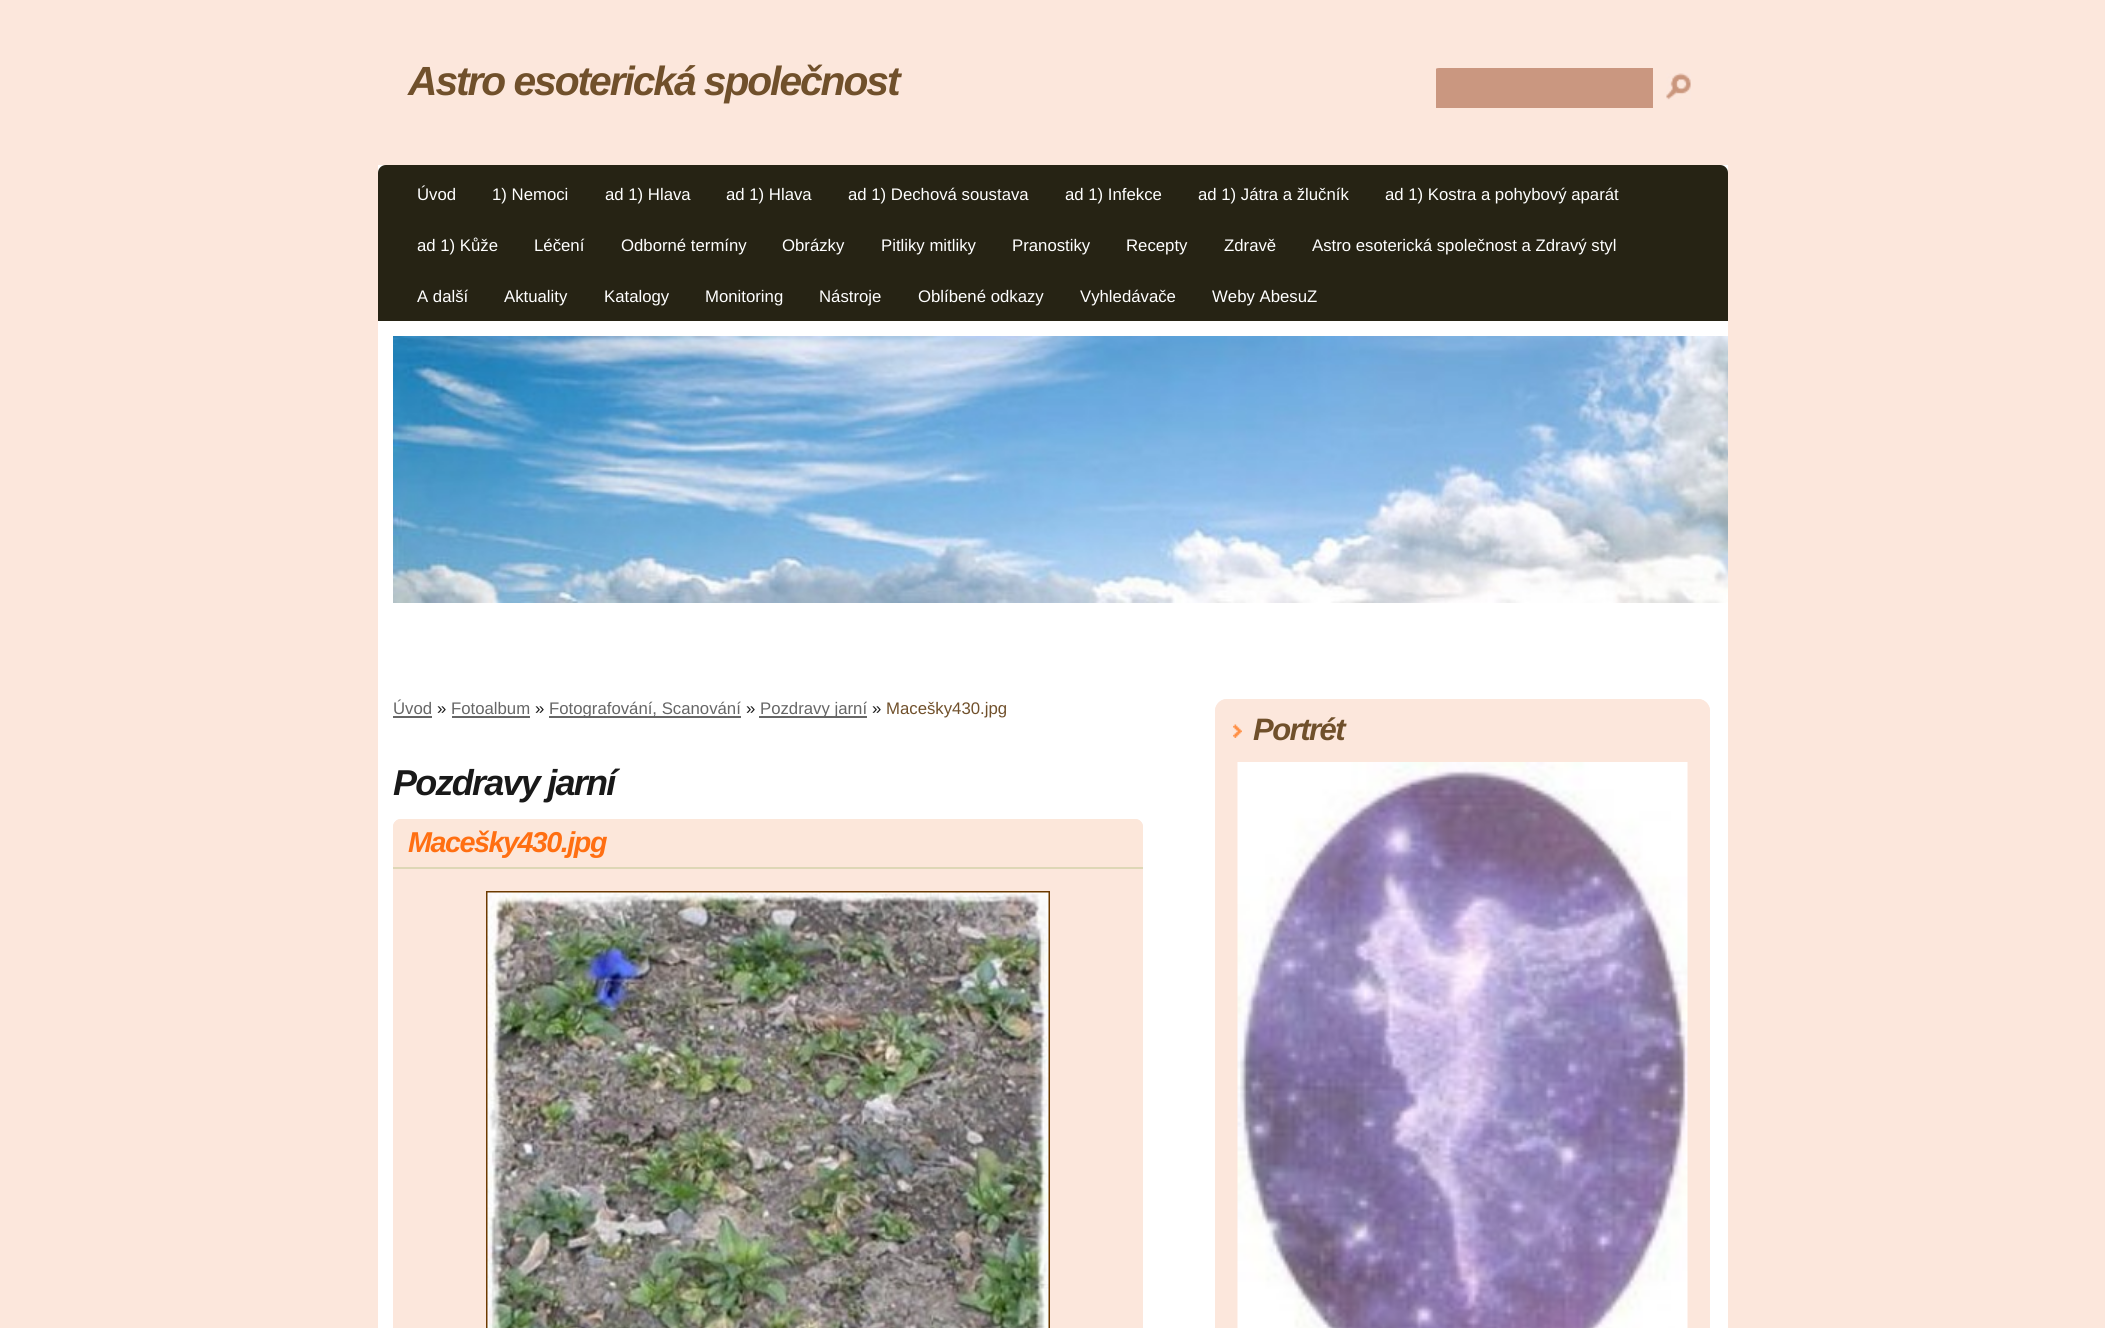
#include <cairo.h>
#include <math.h>
#include <stddef.h>

static cairo_t *ctx;

static void use_color(int r, int g, int b) {
    cairo_set_source_rgb(ctx, r / 255.0, g / 255.0, b / 255.0);
}

static void spaced_text(double x, double y, const char *s, double letter, double word) {
    cairo_move_to(ctx, x, y);
    while (*s) {
        char ch[5] = {0};
        int n = 0;
        do ch[n++] = *s++; while ((*s & 0xC0) == 0x80);
        cairo_show_text(ctx, ch);
        cairo_rel_move_to(ctx, letter + word * (*ch == ' '), 0);
    }
}

static void round_rect(double x, double y, double w, double h, double r) {
    cairo_new_sub_path(ctx);
    cairo_arc(ctx, x + w - r, y + h - r, r, 0, M_PI / 2);
    cairo_arc(ctx, x + r, y + h - r, r, M_PI / 2, M_PI);
    cairo_arc(ctx, x + r, y + r, r, M_PI, 1.5 * M_PI);
    cairo_arc(ctx, x + w - r, y + r, r, 1.5 * M_PI, 2 * M_PI);
    cairo_close_path(ctx);
}

static void picture(const char *path, double x, double y, double w, double h) {
    cairo_surface_t *image = cairo_image_surface_create_from_png(path);
    cairo_save(ctx);
    cairo_set_source_surface(ctx, image, x, y);
    cairo_rectangle(ctx, x, y, w, h);
    cairo_fill(ctx);
    cairo_restore(ctx);
    cairo_surface_destroy(image);
}

int main(void) {
    cairo_surface_t *surface = cairo_image_surface_create(CAIRO_FORMAT_RGB24, 2105, 1328);
    ctx = cairo_create(surface);
    cairo_font_options_t *options = cairo_font_options_create();
    cairo_font_options_set_hint_metrics(options, CAIRO_HINT_METRICS_OFF);
    cairo_font_options_set_hint_style(options, CAIRO_HINT_STYLE_NONE);
    cairo_set_font_options(ctx, options);
    cairo_set_miter_limit(ctx, 4);
    use_color(252, 231, 220);
    cairo_paint(ctx);
    use_color(255, 255, 255);
    cairo_rectangle(ctx, 378, 165, 1350, 1163);
    cairo_fill(ctx);
    picture("img1.png", 393, 336, 1335, 267);
    cairo_select_font_face(ctx, "Liberation Sans", CAIRO_FONT_SLANT_ITALIC, CAIRO_FONT_WEIGHT_BOLD);
    cairo_set_font_size(ctx, 40.75);
    use_color(112, 80, 43);
    spaced_text(408, 95, "Astro esoterická společnost", -2.05, 0);
    use_color(38, 35, 20);
    cairo_new_path(ctx);
    cairo_move_to(ctx, 386, 165);
    cairo_line_to(ctx, 1720, 165);
    cairo_curve_to(ctx, 1724.5, 165, 1728, 168.5, 1728, 173);
    cairo_line_to(ctx, 1728, 321);
    cairo_line_to(ctx, 378, 321);
    cairo_line_to(ctx, 378, 173);
    cairo_curve_to(ctx, 378, 168.5, 381.5, 165, 386, 165);
    cairo_close_path(ctx);
    cairo_fill(ctx);
    cairo_select_font_face(ctx, "Liberation Sans", CAIRO_FONT_SLANT_NORMAL, CAIRO_FONT_WEIGHT_NORMAL);
    cairo_set_font_size(ctx, 16.75);
    use_color(255, 255, 255);
    cairo_move_to(ctx, 417, 200);
    cairo_show_text(ctx, "Úvod");
    cairo_move_to(ctx, 492, 200);
    cairo_show_text(ctx, "1) Nemoci");
    cairo_move_to(ctx, 605, 200);
    cairo_show_text(ctx, "ad 1) Hlava");
    cairo_move_to(ctx, 726, 200);
    cairo_show_text(ctx, "ad 1) Hlava");
    cairo_move_to(ctx, 848, 200);
    cairo_show_text(ctx, "ad 1) Dechová soustava");
    cairo_move_to(ctx, 1065, 200);
    cairo_show_text(ctx, "ad 1) Infekce");
    cairo_move_to(ctx, 1198, 200);
    cairo_show_text(ctx, "ad 1) Játra a žlučník");
    cairo_move_to(ctx, 1385, 200);
    cairo_show_text(ctx, "ad 1) Kostra a pohybový aparát");
    cairo_move_to(ctx, 417, 251);
    cairo_show_text(ctx, "ad 1) Kůže");
    cairo_move_to(ctx, 534, 251);
    cairo_show_text(ctx, "Léčení");
    cairo_move_to(ctx, 621, 251);
    cairo_show_text(ctx, "Odborné termíny");
    cairo_move_to(ctx, 782, 251);
    cairo_show_text(ctx, "Obrázky");
    cairo_move_to(ctx, 881, 251);
    cairo_show_text(ctx, "Pitliky mitliky");
    cairo_move_to(ctx, 1012, 251);
    cairo_show_text(ctx, "Pranostiky");
    cairo_move_to(ctx, 1126, 251);
    cairo_show_text(ctx, "Recepty");
    cairo_move_to(ctx, 1224, 251);
    cairo_show_text(ctx, "Zdravě");
    cairo_move_to(ctx, 1312, 251);
    cairo_show_text(ctx, "Astro esoterická společnost a Zdravý styl");
    cairo_move_to(ctx, 417, 302);
    cairo_show_text(ctx, "A další");
    cairo_move_to(ctx, 504, 302);
    cairo_show_text(ctx, "Aktuality");
    cairo_move_to(ctx, 604, 302);
    cairo_show_text(ctx, "Katalogy");
    cairo_move_to(ctx, 705, 302);
    cairo_show_text(ctx, "Monitoring");
    cairo_move_to(ctx, 819, 302);
    cairo_show_text(ctx, "Nástroje");
    cairo_move_to(ctx, 918, 302);
    cairo_show_text(ctx, "Oblíbené odkazy");
    cairo_move_to(ctx, 1080, 302);
    cairo_show_text(ctx, "Vyhledávače");
    cairo_move_to(ctx, 1212, 302);
    cairo_show_text(ctx, "Weby AbesuZ");
    use_color(102, 102, 102);
    cairo_move_to(ctx, 393, 714);
    cairo_show_text(ctx, "Úvod");
    cairo_rectangle(ctx, 393, 716, 39, 2);
    cairo_fill(ctx);
    use_color(25, 25, 25);
    cairo_move_to(ctx, 437, 714);
    cairo_show_text(ctx, "»");
    use_color(102, 102, 102);
    cairo_move_to(ctx, 451, 714);
    cairo_show_text(ctx, "Fotoalbum");
    cairo_rectangle(ctx, 452, 716, 78, 2);
    cairo_fill(ctx);
    use_color(25, 25, 25);
    cairo_move_to(ctx, 535, 714);
    cairo_show_text(ctx, "»");
    use_color(102, 102, 102);
    cairo_rectangle(ctx, 549, 716, 192, 2);
    cairo_fill(ctx);
    cairo_move_to(ctx, 549, 714);
    cairo_show_text(ctx, "Fotografování, Scanování");
    use_color(25, 25, 25);
    cairo_move_to(ctx, 746, 714);
    cairo_show_text(ctx, "»");
    use_color(102, 102, 102);
    cairo_rectangle(ctx, 759, 716, 108, 2);
    cairo_fill(ctx);
    cairo_move_to(ctx, 760, 714);
    cairo_show_text(ctx, "Pozdravy jarní");
    use_color(25, 25, 25);
    cairo_move_to(ctx, 872, 714);
    cairo_show_text(ctx, "»");
    use_color(112, 80, 43);
    cairo_move_to(ctx, 886, 714);
    cairo_show_text(ctx, "Macešky430.jpg");
    cairo_select_font_face(ctx, "Liberation Sans", CAIRO_FONT_SLANT_ITALIC, CAIRO_FONT_WEIGHT_BOLD);
    cairo_set_font_size(ctx, 36);
    use_color(25, 25, 25);
    spaced_text(393, 795, "Pozdravy jarní", -1.75, 0);
    use_color(252, 231, 220);
    cairo_new_path(ctx);
    cairo_move_to(ctx, 401, 819);
    cairo_line_to(ctx, 1135, 819);
    cairo_curve_to(ctx, 1139.5, 819, 1143, 822.5, 1143, 827);
    cairo_line_to(ctx, 1143, 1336);
    cairo_line_to(ctx, 393, 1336);
    cairo_line_to(ctx, 393, 827);
    cairo_curve_to(ctx, 393, 822.5, 396.5, 819, 401, 819);
    cairo_close_path(ctx);
    cairo_fill(ctx);
    use_color(252, 231, 218);
    cairo_new_path(ctx);
    cairo_move_to(ctx, 401, 819);
    cairo_line_to(ctx, 1135, 819);
    cairo_curve_to(ctx, 1139.5, 819, 1143, 822.5, 1143, 827);
    cairo_line_to(ctx, 1143, 869);
    cairo_line_to(ctx, 393, 869);
    cairo_line_to(ctx, 393, 827);
    cairo_curve_to(ctx, 393, 822.5, 396.5, 819, 401, 819);
    cairo_close_path(ctx);
    cairo_fill(ctx);
    use_color(222, 215, 182);
    cairo_rectangle(ctx, 393, 867, 750, 2);
    cairo_fill(ctx);
    cairo_set_font_size(ctx, 28.75);
    use_color(255, 111, 18);
    spaced_text(408, 852, "Macešky430.jpg", -1.5, 0);
    cairo_rectangle(ctx, 487, 892, 562, 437);
    use_color(108, 58, 0);
    cairo_stroke(ctx);
    picture("img2.png", 487, 892, 562, 436);
    cairo_save(ctx);
    round_rect(1428, 68, 300, 51, 12);
    cairo_clip(ctx);
    use_color(202, 151, 128);
    cairo_rectangle(ctx, 1436, 68, 215, 38);
    cairo_fill(ctx);
    cairo_restore(ctx);
    use_color(202, 151, 128);
    cairo_set_fill_rule(ctx, CAIRO_FILL_RULE_EVEN_ODD);
    cairo_new_path(ctx);
    cairo_move_to(ctx, 1440, 68);
    cairo_line_to(ctx, 1436, 69);
    cairo_line_to(ctx, 1436, 108);
    cairo_line_to(ctx, 1653, 108);
    cairo_line_to(ctx, 1653, 68);
    cairo_close_path(ctx);
    cairo_move_to(ctx, 1438, 70);
    cairo_line_to(ctx, 1438, 106);
    cairo_line_to(ctx, 1651, 106);
    cairo_line_to(ctx, 1651, 70);
    cairo_close_path(ctx);
    cairo_fill(ctx);
    picture("img3.png", 1666, 73, 25, 27);
    use_color(252, 231, 220);
    round_rect(1215, 699, 495, 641, 12);
    cairo_fill(ctx);
    cairo_new_path(ctx);
    cairo_move_to(ctx, 1227, 699);
    cairo_line_to(ctx, 1698, 699);
    cairo_curve_to(ctx, 1704.5, 699, 1710, 704.5, 1710, 711);
    cairo_line_to(ctx, 1710, 747);
    cairo_line_to(ctx, 1215, 747);
    cairo_line_to(ctx, 1215, 711);
    cairo_curve_to(ctx, 1215, 704.5, 1220.5, 699, 1227, 699);
    cairo_close_path(ctx);
    cairo_fill(ctx);
    picture("img4.png", 1233, 724, 9, 14);
    cairo_set_font_size(ctx, 31);
    use_color(112, 80, 43);
    spaced_text(1253, 740, "Portrét", -1.5, 0);
    picture("img5.png", 1237, 762, 451, 566);
    cairo_surface_write_to_png(surface, "result.png");
    cairo_font_options_destroy(options);
    cairo_destroy(ctx);
    cairo_surface_destroy(surface);
    return 0;
}
